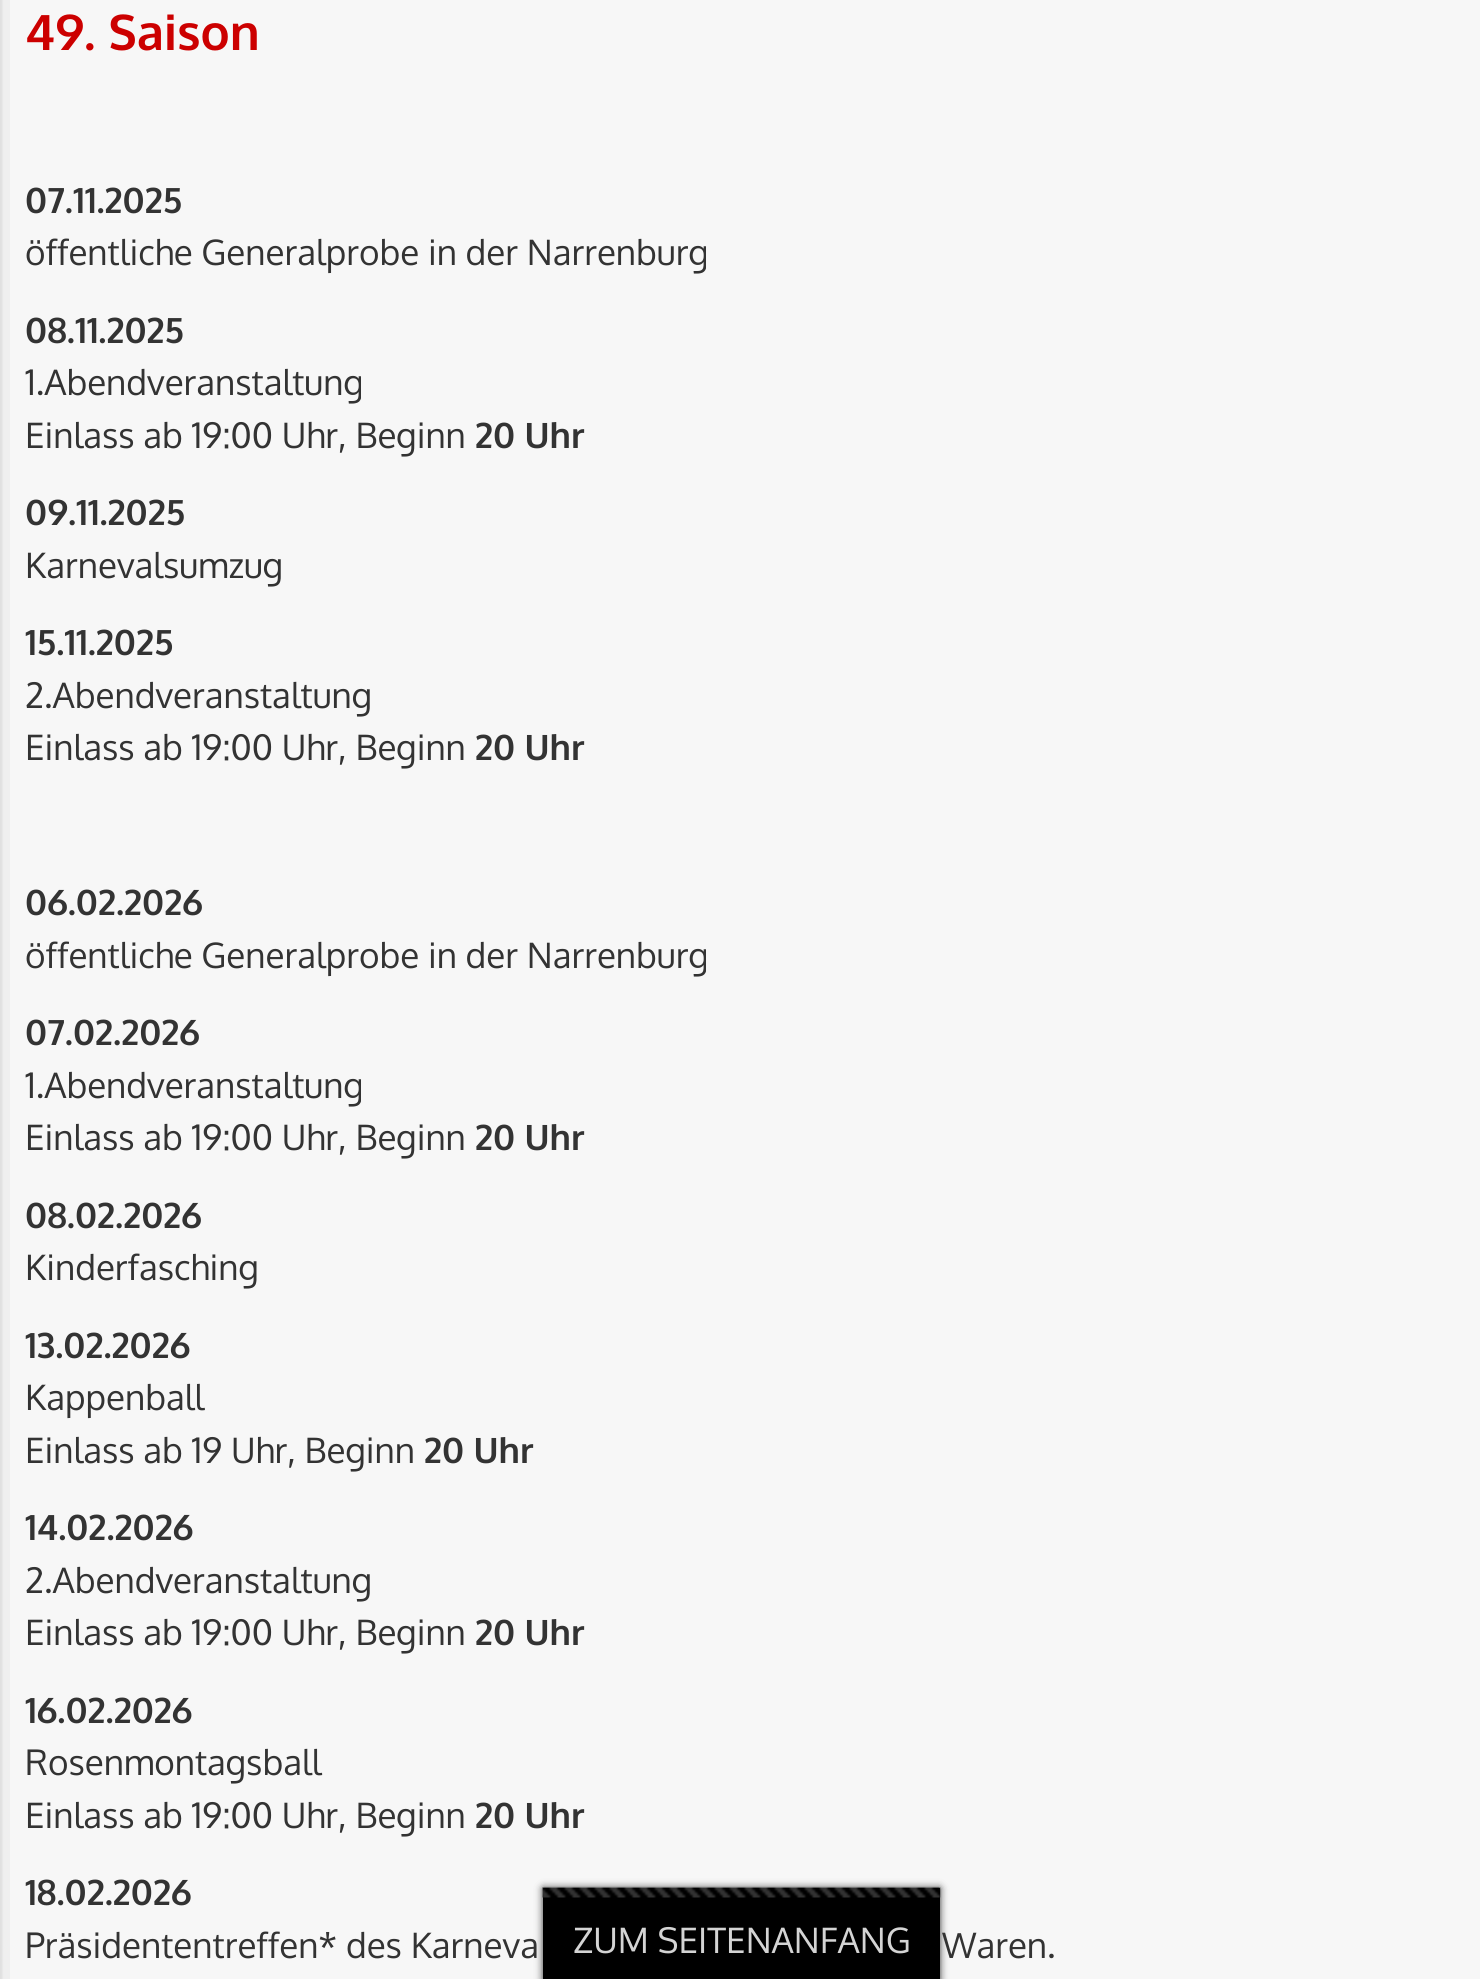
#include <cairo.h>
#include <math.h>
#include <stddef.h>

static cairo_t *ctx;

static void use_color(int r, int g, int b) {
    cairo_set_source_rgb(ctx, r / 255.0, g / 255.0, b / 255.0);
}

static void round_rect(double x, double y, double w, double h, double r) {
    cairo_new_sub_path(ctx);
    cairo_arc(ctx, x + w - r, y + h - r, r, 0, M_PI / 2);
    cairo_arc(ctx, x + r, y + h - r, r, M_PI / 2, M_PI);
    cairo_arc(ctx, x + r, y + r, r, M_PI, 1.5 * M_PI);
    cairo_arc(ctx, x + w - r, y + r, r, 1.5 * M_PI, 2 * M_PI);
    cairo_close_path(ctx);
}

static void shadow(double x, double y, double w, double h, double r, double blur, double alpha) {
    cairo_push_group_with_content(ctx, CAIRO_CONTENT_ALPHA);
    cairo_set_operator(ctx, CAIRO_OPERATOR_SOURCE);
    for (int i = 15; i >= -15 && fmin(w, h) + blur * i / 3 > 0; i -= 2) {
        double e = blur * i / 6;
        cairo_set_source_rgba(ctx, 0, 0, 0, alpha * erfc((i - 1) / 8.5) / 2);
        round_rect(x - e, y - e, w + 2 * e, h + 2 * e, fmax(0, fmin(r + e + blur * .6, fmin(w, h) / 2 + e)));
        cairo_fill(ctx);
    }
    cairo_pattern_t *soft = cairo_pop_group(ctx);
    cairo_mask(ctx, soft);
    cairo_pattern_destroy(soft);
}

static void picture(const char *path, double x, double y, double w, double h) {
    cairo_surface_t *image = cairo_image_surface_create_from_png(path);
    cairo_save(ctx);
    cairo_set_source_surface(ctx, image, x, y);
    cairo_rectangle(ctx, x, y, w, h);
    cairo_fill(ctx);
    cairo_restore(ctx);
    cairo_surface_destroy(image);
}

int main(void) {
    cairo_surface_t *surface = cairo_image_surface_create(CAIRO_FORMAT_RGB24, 1480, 1979);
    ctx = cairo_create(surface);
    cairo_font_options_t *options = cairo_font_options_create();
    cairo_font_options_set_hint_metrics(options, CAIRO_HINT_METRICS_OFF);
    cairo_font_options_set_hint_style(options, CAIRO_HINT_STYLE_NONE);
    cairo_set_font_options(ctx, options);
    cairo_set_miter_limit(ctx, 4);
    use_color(247, 247, 247);
    cairo_paint(ctx);
    picture("img1.png", 0, 0, 10, 1979);
    cairo_select_font_face(ctx, "Oxygen", CAIRO_FONT_SLANT_NORMAL, CAIRO_FONT_WEIGHT_BOLD);
    cairo_set_font_size(ctx, 49);
    use_color(204, 0, 0);
    cairo_move_to(ctx, 25, 50);
    cairo_show_text(ctx, "49. Saison");
    cairo_set_font_size(ctx, 35);
    use_color(51, 51, 51);
    cairo_move_to(ctx, 25, 213);
    cairo_show_text(ctx, "07.11.2025");
    cairo_select_font_face(ctx, "Oxygen", CAIRO_FONT_SLANT_NORMAL, CAIRO_FONT_WEIGHT_NORMAL);
    cairo_move_to(ctx, 25, 265);
    cairo_show_text(ctx, "öffentliche Generalprobe in der Narrenburg");
    cairo_select_font_face(ctx, "Oxygen", CAIRO_FONT_SLANT_NORMAL, CAIRO_FONT_WEIGHT_BOLD);
    cairo_move_to(ctx, 25, 343);
    cairo_show_text(ctx, "08.11.2025");
    cairo_select_font_face(ctx, "Oxygen", CAIRO_FONT_SLANT_NORMAL, CAIRO_FONT_WEIGHT_NORMAL);
    cairo_move_to(ctx, 25, 395);
    cairo_show_text(ctx, "1.Abendveranstaltung");
    cairo_move_to(ctx, 25, 448);
    cairo_show_text(ctx, "Einlass ab 19:00 Uhr, Beginn");
    cairo_select_font_face(ctx, "Oxygen", CAIRO_FONT_SLANT_NORMAL, CAIRO_FONT_WEIGHT_BOLD);
    cairo_move_to(ctx, 475, 448);
    cairo_show_text(ctx, "20 Uhr");
    cairo_move_to(ctx, 25, 525);
    cairo_show_text(ctx, "09.11.2025");
    cairo_select_font_face(ctx, "Oxygen", CAIRO_FONT_SLANT_NORMAL, CAIRO_FONT_WEIGHT_NORMAL);
    cairo_move_to(ctx, 25, 578);
    cairo_show_text(ctx, "Karnevalsumzug");
    cairo_select_font_face(ctx, "Oxygen", CAIRO_FONT_SLANT_NORMAL, CAIRO_FONT_WEIGHT_BOLD);
    cairo_move_to(ctx, 25, 655);
    cairo_show_text(ctx, "15.11.2025");
    cairo_select_font_face(ctx, "Oxygen", CAIRO_FONT_SLANT_NORMAL, CAIRO_FONT_WEIGHT_NORMAL);
    cairo_move_to(ctx, 25, 708);
    cairo_show_text(ctx, "2.Abendveranstaltung");
    cairo_move_to(ctx, 25, 760);
    cairo_show_text(ctx, "Einlass ab 19:00 Uhr, Beginn");
    cairo_select_font_face(ctx, "Oxygen", CAIRO_FONT_SLANT_NORMAL, CAIRO_FONT_WEIGHT_BOLD);
    cairo_move_to(ctx, 475, 760);
    cairo_show_text(ctx, "20 Uhr");
    cairo_move_to(ctx, 25, 915);
    cairo_show_text(ctx, "06.02.2026");
    cairo_select_font_face(ctx, "Oxygen", CAIRO_FONT_SLANT_NORMAL, CAIRO_FONT_WEIGHT_NORMAL);
    cairo_move_to(ctx, 25, 968);
    cairo_show_text(ctx, "öffentliche Generalprobe in der Narrenburg");
    cairo_select_font_face(ctx, "Oxygen", CAIRO_FONT_SLANT_NORMAL, CAIRO_FONT_WEIGHT_BOLD);
    cairo_move_to(ctx, 25, 1045);
    cairo_show_text(ctx, "07.02.2026");
    cairo_select_font_face(ctx, "Oxygen", CAIRO_FONT_SLANT_NORMAL, CAIRO_FONT_WEIGHT_NORMAL);
    cairo_move_to(ctx, 25, 1098);
    cairo_show_text(ctx, "1.Abendveranstaltung");
    cairo_move_to(ctx, 25, 1150);
    cairo_show_text(ctx, "Einlass ab 19:00 Uhr, Beginn");
    cairo_select_font_face(ctx, "Oxygen", CAIRO_FONT_SLANT_NORMAL, CAIRO_FONT_WEIGHT_BOLD);
    cairo_move_to(ctx, 475, 1150);
    cairo_show_text(ctx, "20 Uhr");
    cairo_move_to(ctx, 25, 1228);
    cairo_show_text(ctx, "08.02.2026");
    cairo_select_font_face(ctx, "Oxygen", CAIRO_FONT_SLANT_NORMAL, CAIRO_FONT_WEIGHT_NORMAL);
    cairo_move_to(ctx, 25, 1280);
    cairo_show_text(ctx, "Kinderfasching");
    cairo_select_font_face(ctx, "Oxygen", CAIRO_FONT_SLANT_NORMAL, CAIRO_FONT_WEIGHT_BOLD);
    cairo_move_to(ctx, 25, 1358);
    cairo_show_text(ctx, "13.02.2026");
    cairo_select_font_face(ctx, "Oxygen", CAIRO_FONT_SLANT_NORMAL, CAIRO_FONT_WEIGHT_NORMAL);
    cairo_move_to(ctx, 25, 1410);
    cairo_show_text(ctx, "Kappenball");
    cairo_move_to(ctx, 25, 1463);
    cairo_show_text(ctx, "Einlass ab 19 Uhr, Beginn");
    cairo_select_font_face(ctx, "Oxygen", CAIRO_FONT_SLANT_NORMAL, CAIRO_FONT_WEIGHT_BOLD);
    cairo_move_to(ctx, 424, 1463);
    cairo_show_text(ctx, "20 Uhr");
    cairo_move_to(ctx, 25, 1540);
    cairo_show_text(ctx, "14.02.2026");
    cairo_select_font_face(ctx, "Oxygen", CAIRO_FONT_SLANT_NORMAL, CAIRO_FONT_WEIGHT_NORMAL);
    cairo_move_to(ctx, 25, 1593);
    cairo_show_text(ctx, "2.Abendveranstaltung");
    cairo_move_to(ctx, 25, 1645);
    cairo_show_text(ctx, "Einlass ab 19:00 Uhr, Beginn");
    cairo_select_font_face(ctx, "Oxygen", CAIRO_FONT_SLANT_NORMAL, CAIRO_FONT_WEIGHT_BOLD);
    cairo_move_to(ctx, 475, 1645);
    cairo_show_text(ctx, "20 Uhr");
    cairo_move_to(ctx, 25, 1723);
    cairo_show_text(ctx, "16.02.2026");
    cairo_select_font_face(ctx, "Oxygen", CAIRO_FONT_SLANT_NORMAL, CAIRO_FONT_WEIGHT_NORMAL);
    cairo_move_to(ctx, 25, 1775);
    cairo_show_text(ctx, "Rosenmontagsball");
    cairo_move_to(ctx, 25, 1828);
    cairo_show_text(ctx, "Einlass ab 19:00 Uhr, Beginn");
    cairo_select_font_face(ctx, "Oxygen", CAIRO_FONT_SLANT_NORMAL, CAIRO_FONT_WEIGHT_BOLD);
    cairo_move_to(ctx, 475, 1828);
    cairo_show_text(ctx, "20 Uhr");
    cairo_move_to(ctx, 25, 1905);
    cairo_show_text(ctx, "18.02.2026");
    cairo_select_font_face(ctx, "Oxygen", CAIRO_FONT_SLANT_NORMAL, CAIRO_FONT_WEIGHT_NORMAL);
    cairo_move_to(ctx, 25, 1958);
    cairo_show_text(ctx, "Präsidententreffen* des Karneva");
    cairo_move_to(ctx, 942, 1958);
    cairo_show_text(ctx, "Waren.");
    use_color(51, 51, 51);
    shadow(543, 1888, 397, 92, 0, 4, 1);
    use_color(0, 0, 0);
    cairo_rectangle(ctx, 543, 1888, 397, 91);
    cairo_fill(ctx);
    picture("img2.png", 542, 1887, 399, 11);
    use_color(212, 212, 212);
    cairo_move_to(ctx, 573, 1953);
    cairo_show_text(ctx, "ZUM SEITENANFANG");
    cairo_surface_write_to_png(surface, "result.png");
    cairo_font_options_destroy(options);
    cairo_destroy(ctx);
    cairo_surface_destroy(surface);
    return 0;
}
